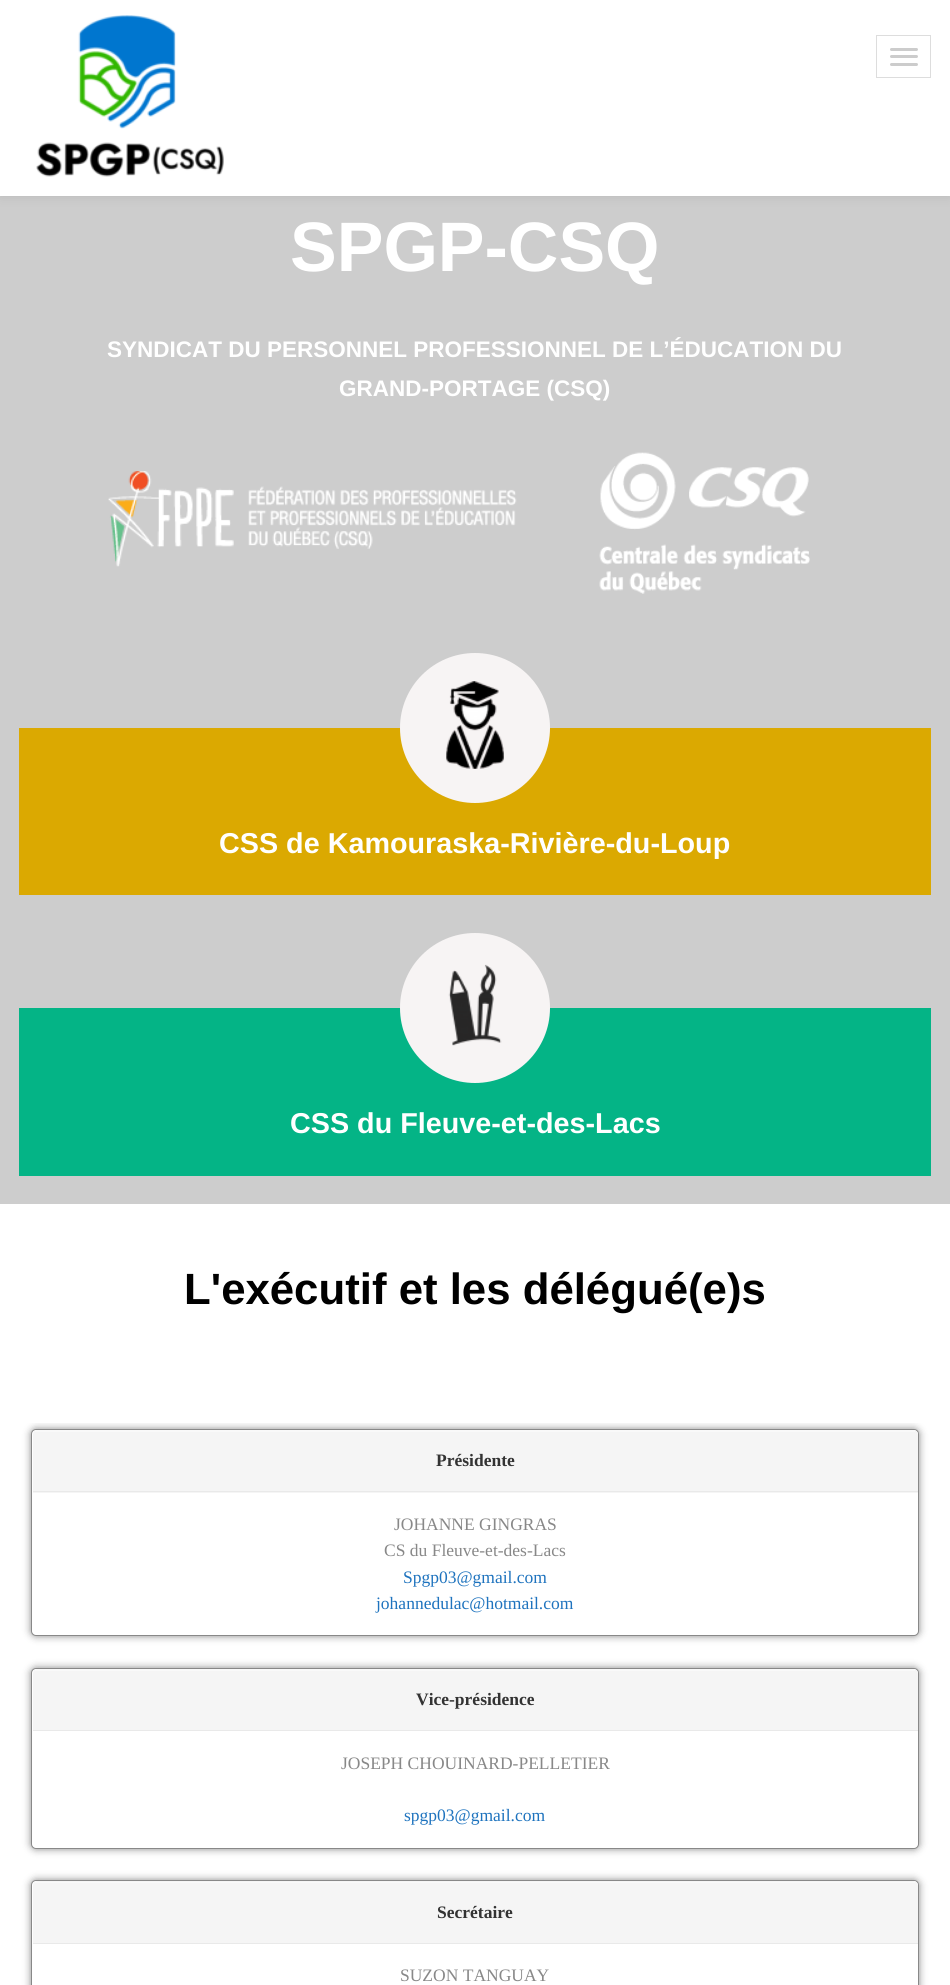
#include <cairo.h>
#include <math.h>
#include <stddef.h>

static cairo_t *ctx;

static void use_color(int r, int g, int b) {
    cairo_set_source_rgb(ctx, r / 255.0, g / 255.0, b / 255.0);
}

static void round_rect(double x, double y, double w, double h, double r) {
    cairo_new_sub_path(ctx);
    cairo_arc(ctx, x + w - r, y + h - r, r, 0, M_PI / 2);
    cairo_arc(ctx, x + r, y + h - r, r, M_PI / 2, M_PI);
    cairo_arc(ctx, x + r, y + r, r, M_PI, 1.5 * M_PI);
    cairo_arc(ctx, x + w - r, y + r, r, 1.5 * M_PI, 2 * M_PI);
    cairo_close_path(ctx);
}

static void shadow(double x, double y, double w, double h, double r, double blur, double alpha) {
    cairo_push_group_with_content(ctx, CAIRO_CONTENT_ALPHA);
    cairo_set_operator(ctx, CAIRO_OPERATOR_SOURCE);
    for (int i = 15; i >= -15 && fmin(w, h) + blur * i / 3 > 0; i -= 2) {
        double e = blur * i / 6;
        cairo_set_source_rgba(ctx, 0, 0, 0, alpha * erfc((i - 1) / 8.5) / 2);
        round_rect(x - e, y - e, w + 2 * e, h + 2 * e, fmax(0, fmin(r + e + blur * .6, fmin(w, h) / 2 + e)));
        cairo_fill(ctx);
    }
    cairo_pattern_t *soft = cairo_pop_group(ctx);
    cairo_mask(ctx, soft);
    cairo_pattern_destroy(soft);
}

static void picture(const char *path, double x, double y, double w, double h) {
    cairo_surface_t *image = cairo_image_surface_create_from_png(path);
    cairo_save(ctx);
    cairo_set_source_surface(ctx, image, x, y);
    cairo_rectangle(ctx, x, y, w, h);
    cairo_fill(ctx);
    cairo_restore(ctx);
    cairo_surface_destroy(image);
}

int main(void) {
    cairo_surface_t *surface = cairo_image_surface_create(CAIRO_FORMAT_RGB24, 950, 1985);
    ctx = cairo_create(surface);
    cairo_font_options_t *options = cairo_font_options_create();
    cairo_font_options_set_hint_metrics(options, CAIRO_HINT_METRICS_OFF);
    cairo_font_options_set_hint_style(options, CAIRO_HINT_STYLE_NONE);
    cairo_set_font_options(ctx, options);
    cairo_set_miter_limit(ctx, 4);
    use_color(255, 255, 255);
    cairo_paint(ctx);
    use_color(205, 205, 205);
    cairo_rectangle(ctx, 0, 196, 950, 1008);
    cairo_fill(ctx);
    use_color(0, 0, 0);
    shadow(0, 0, 950, 196, 0, 6, 0.1);
    use_color(255, 255, 255);
    cairo_rectangle(ctx, 0, 0, 950, 196);
    cairo_fill(ctx);
    picture("img1.png", 36, 15, 188, 162);
    cairo_rectangle(ctx, 876.5, 35.5, 54, 42);
    use_color(221, 221, 221);
    cairo_set_line_width(ctx, 1);
    cairo_stroke(ctx);
    use_color(204, 204, 204);
    round_rect(890, 48, 28, 3, 1.5);
    cairo_fill(ctx);
    round_rect(890, 55, 28, 3, 1.5);
    cairo_fill(ctx);
    round_rect(890, 63, 28, 3, 1.5);
    cairo_fill(ctx);
    cairo_select_font_face(ctx, "Liberation Sans", CAIRO_FONT_SLANT_NORMAL, CAIRO_FONT_WEIGHT_BOLD);
    cairo_set_font_size(ctx, 70);
    use_color(255, 255, 255);
    cairo_move_to(ctx, 290, 271);
    cairo_show_text(ctx, "SPGP-CSQ");
    cairo_set_font_size(ctx, 22.5);
    cairo_move_to(ctx, 107, 357);
    cairo_show_text(ctx, "SYNDICAT DU PERSONNEL PROFESSIONNEL DE L’ÉDUCATION DU");
    cairo_move_to(ctx, 339, 396);
    cairo_show_text(ctx, "GRAND-PORTAGE (CSQ)");
    picture("img2.png", 108, 471, 409, 96);
    picture("img3.png", 599, 452, 211, 142);
    use_color(219, 169, 1);
    cairo_rectangle(ctx, 19, 728, 912, 167);
    cairo_fill(ctx);
    use_color(247, 244, 244);
    cairo_arc(ctx, 475, 728, 75, 0, 2 * M_PI);
    cairo_fill(ctx);
    picture("img4.png", 446, 681, 58, 88);
    cairo_set_font_size(ctx, 28.75);
    use_color(255, 255, 255);
    cairo_move_to(ctx, 219, 853);
    cairo_show_text(ctx, "CSS de Kamouraska-Rivière-du-Loup");
    use_color(4, 180, 134);
    cairo_rectangle(ctx, 19, 1008, 912, 168);
    cairo_fill(ctx);
    use_color(247, 244, 244);
    cairo_arc(ctx, 475, 1008, 75, 0, 2 * M_PI);
    cairo_fill(ctx);
    picture("img5.png", 448, 964, 54, 82);
    use_color(255, 255, 255);
    cairo_move_to(ctx, 290, 1133);
    cairo_show_text(ctx, "CSS du Fleuve-et-des-Lacs");
    cairo_set_font_size(ctx, 43.75);
    use_color(0, 0, 0);
    cairo_move_to(ctx, 184, 1304);
    cairo_show_text(ctx, "L'exécutif et les délégué(e)s");
    cairo_save(ctx);
    cairo_rectangle(ctx, 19, 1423, 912, 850);
    cairo_clip(ctx);
    use_color(136, 136, 136);
    shadow(31, 1429, 888, 207, 5, 4, 1);
    cairo_restore(ctx);
    use_color(255, 255, 255);
    round_rect(31.5, 1429.5, 887, 206, 4.5);
    cairo_fill_preserve(ctx);
    use_color(136, 136, 136);
    cairo_stroke(ctx);
    use_color(245, 245, 245);
    cairo_new_path(ctx);
    cairo_move_to(ctx, 38, 1430);
    cairo_line_to(ctx, 913, 1430);
    cairo_curve_to(ctx, 916, 1430, 918, 1432, 918, 1435);
    cairo_line_to(ctx, 918, 1493);
    cairo_line_to(ctx, 33, 1493);
    cairo_line_to(ctx, 33, 1435);
    cairo_curve_to(ctx, 33, 1432, 35, 1430, 38, 1430);
    cairo_close_path(ctx);
    cairo_fill(ctx);
    picture("img6.png", 35, 1430, 880, 2);
    use_color(233, 233, 233);
    cairo_rectangle(ctx, 33, 1491, 885, 1);
    cairo_fill(ctx);
    cairo_select_font_face(ctx, "Liberation Serif", CAIRO_FONT_SLANT_NORMAL, CAIRO_FONT_WEIGHT_BOLD);
    cairo_set_font_size(ctx, 17.5);
    use_color(51, 51, 51);
    cairo_move_to(ctx, 436, 1466);
    cairo_show_text(ctx, "Présidente");
    cairo_select_font_face(ctx, "Liberation Serif", CAIRO_FONT_SLANT_NORMAL, CAIRO_FONT_WEIGHT_NORMAL);
    use_color(136, 136, 136);
    cairo_move_to(ctx, 394, 1530);
    cairo_show_text(ctx, "JOHANNE GINGRAS");
    cairo_move_to(ctx, 384, 1556);
    cairo_show_text(ctx, "CS du Fleuve-et-des-Lacs");
    use_color(30, 115, 190);
    cairo_move_to(ctx, 403, 1583);
    cairo_show_text(ctx, "Spgp03@gmail.com");
    cairo_move_to(ctx, 376, 1609);
    cairo_show_text(ctx, "johannedulac@hotmail.com");
    use_color(136, 136, 136);
    shadow(31, 1668, 888, 181, 5, 4, 1);
    use_color(255, 255, 255);
    round_rect(31.5, 1668.5, 887, 180, 4.5);
    cairo_fill_preserve(ctx);
    use_color(136, 136, 136);
    cairo_stroke(ctx);
    use_color(245, 245, 245);
    cairo_new_path(ctx);
    cairo_move_to(ctx, 38, 1669);
    cairo_line_to(ctx, 913, 1669);
    cairo_curve_to(ctx, 916, 1669, 918, 1671, 918, 1674);
    cairo_line_to(ctx, 918, 1731);
    cairo_line_to(ctx, 33, 1731);
    cairo_line_to(ctx, 33, 1674);
    cairo_curve_to(ctx, 33, 1671, 35, 1669, 38, 1669);
    cairo_close_path(ctx);
    cairo_fill(ctx);
    picture("img7.png", 35, 1669, 880, 2);
    use_color(233, 233, 233);
    cairo_rectangle(ctx, 33, 1730, 885, 1);
    cairo_fill(ctx);
    cairo_select_font_face(ctx, "Liberation Serif", CAIRO_FONT_SLANT_NORMAL, CAIRO_FONT_WEIGHT_BOLD);
    use_color(51, 51, 51);
    cairo_move_to(ctx, 416, 1705);
    cairo_show_text(ctx, "Vice-présidence");
    cairo_select_font_face(ctx, "Liberation Serif", CAIRO_FONT_SLANT_NORMAL, CAIRO_FONT_WEIGHT_NORMAL);
    use_color(136, 136, 136);
    cairo_move_to(ctx, 341, 1769);
    cairo_show_text(ctx, "JOSEPH CHOUINARD-PELLETIER");
    use_color(30, 115, 190);
    cairo_move_to(ctx, 404, 1821);
    cairo_show_text(ctx, "spgp03@gmail.com");
    use_color(136, 136, 136);
    shadow(31, 1880, 888, 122, 5, 4, 1);
    use_color(255, 255, 255);
    round_rect(31.5, 1880.5, 887, 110, 4.5);
    cairo_fill_preserve(ctx);
    use_color(136, 136, 136);
    cairo_stroke(ctx);
    use_color(245, 245, 245);
    cairo_new_path(ctx);
    cairo_move_to(ctx, 38, 1881);
    cairo_line_to(ctx, 913, 1881);
    cairo_curve_to(ctx, 916, 1881, 918, 1883, 918, 1886);
    cairo_line_to(ctx, 918, 1944);
    cairo_line_to(ctx, 33, 1944);
    cairo_line_to(ctx, 33, 1886);
    cairo_curve_to(ctx, 33, 1883, 35, 1881, 38, 1881);
    cairo_close_path(ctx);
    cairo_fill(ctx);
    use_color(249, 249, 249);
    cairo_rectangle(ctx, 35, 1882, 880, 1);
    cairo_fill(ctx);
    use_color(233, 233, 233);
    cairo_rectangle(ctx, 33, 1943, 885, 1);
    cairo_fill(ctx);
    cairo_select_font_face(ctx, "Liberation Serif", CAIRO_FONT_SLANT_NORMAL, CAIRO_FONT_WEIGHT_BOLD);
    use_color(51, 51, 51);
    cairo_move_to(ctx, 437, 1918);
    cairo_show_text(ctx, "Secrétaire");
    cairo_select_font_face(ctx, "Liberation Serif", CAIRO_FONT_SLANT_NORMAL, CAIRO_FONT_WEIGHT_NORMAL);
    use_color(136, 136, 136);
    cairo_move_to(ctx, 400, 1981);
    cairo_show_text(ctx, "SUZON TANGUAY");
    cairo_surface_write_to_png(surface, "result.png");
    cairo_font_options_destroy(options);
    cairo_destroy(ctx);
    cairo_surface_destroy(surface);
    return 0;
}
